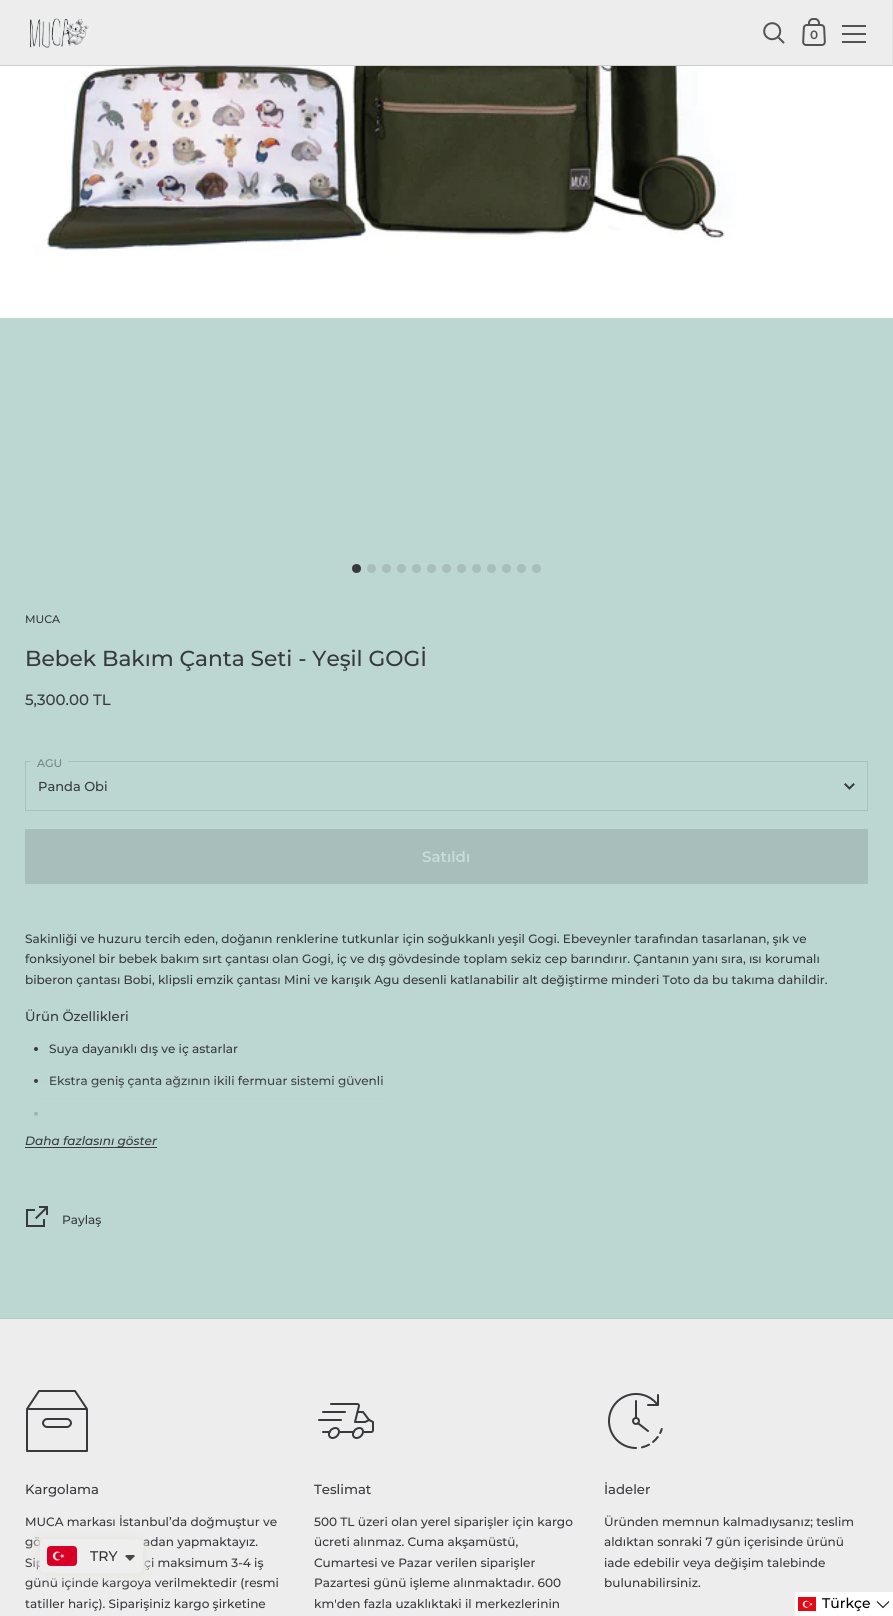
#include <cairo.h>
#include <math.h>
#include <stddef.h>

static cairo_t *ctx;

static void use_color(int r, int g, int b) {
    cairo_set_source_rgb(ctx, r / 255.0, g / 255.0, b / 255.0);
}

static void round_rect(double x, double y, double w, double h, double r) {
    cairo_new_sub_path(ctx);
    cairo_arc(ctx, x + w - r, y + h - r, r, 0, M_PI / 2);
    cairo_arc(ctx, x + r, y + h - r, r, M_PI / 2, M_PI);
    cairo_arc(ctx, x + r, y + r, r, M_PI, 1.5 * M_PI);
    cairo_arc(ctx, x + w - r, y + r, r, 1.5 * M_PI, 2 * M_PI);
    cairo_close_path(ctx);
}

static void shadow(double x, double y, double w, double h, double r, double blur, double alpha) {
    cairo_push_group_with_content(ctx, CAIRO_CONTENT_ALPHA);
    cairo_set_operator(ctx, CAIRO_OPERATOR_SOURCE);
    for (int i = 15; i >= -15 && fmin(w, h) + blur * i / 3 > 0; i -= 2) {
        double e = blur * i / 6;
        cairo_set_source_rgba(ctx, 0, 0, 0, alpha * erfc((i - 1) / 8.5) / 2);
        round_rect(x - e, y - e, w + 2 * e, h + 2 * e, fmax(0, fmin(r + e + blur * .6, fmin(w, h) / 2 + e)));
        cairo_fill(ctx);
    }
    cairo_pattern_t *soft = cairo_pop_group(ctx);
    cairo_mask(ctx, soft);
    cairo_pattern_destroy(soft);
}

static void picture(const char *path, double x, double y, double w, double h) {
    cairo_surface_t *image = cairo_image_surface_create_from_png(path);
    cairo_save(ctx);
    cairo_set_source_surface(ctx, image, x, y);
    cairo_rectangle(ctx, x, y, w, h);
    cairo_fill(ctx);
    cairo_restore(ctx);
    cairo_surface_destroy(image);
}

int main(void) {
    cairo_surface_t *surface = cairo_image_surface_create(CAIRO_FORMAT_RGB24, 893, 1616);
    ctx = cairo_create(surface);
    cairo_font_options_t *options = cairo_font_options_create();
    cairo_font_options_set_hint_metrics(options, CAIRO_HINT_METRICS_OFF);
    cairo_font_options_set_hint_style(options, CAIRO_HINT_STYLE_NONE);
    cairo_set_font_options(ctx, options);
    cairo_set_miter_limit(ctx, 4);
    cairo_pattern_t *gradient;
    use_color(188, 215, 210);
    cairo_paint(ctx);
    use_color(206, 206, 206);
    cairo_rectangle(ctx, 0, 65, 893, 1);
    cairo_fill(ctx);
    use_color(237, 237, 237);
    cairo_rectangle(ctx, 0, 0, 892, 65);
    cairo_fill(ctx);
    use_color(225, 225, 225);
    cairo_rectangle(ctx, 892, 0, 1, 65);
    cairo_fill(ctx);
    picture("img1.png", 30, 18, 59, 30);
    picture("img2.png", 763, 22, 22, 22);
    picture("img3.png", 802, 18, 24, 28);
    cairo_select_font_face(ctx, "Montserrat SemiBold", CAIRO_FONT_SLANT_NORMAL, CAIRO_FONT_WEIGHT_NORMAL);
    cairo_set_font_size(ctx, 12);
    use_color(83, 83, 83);
    cairo_move_to(ctx, 810, 39);
    cairo_show_text(ctx, "0");
    cairo_rectangle(ctx, 842, 25, 24, 2);
    cairo_fill(ctx);
    cairo_rectangle(ctx, 842, 33, 24, 2);
    cairo_fill(ctx);
    cairo_rectangle(ctx, 842, 41, 24, 2);
    cairo_fill(ctx);
    use_color(177, 202, 198);
    cairo_rectangle(ctx, 0, 1318, 893, 1);
    cairo_fill(ctx);
    picture("img4.png", 0, 66, 893, 252);
    use_color(55, 57, 61);
    cairo_arc(ctx, 356.5, 568.5, 4.5, 0, 2 * M_PI);
    cairo_fill(ctx);
    use_color(167, 190, 186);
    cairo_arc(ctx, 371.5, 568.5, 4.5, 0, 2 * M_PI);
    cairo_fill(ctx);
    cairo_arc(ctx, 386.5, 568.5, 4.5, 0, 2 * M_PI);
    cairo_fill(ctx);
    cairo_arc(ctx, 401.5, 568.5, 4.5, 0, 2 * M_PI);
    cairo_fill(ctx);
    cairo_arc(ctx, 416.5, 568.5, 4.5, 0, 2 * M_PI);
    cairo_fill(ctx);
    cairo_arc(ctx, 431.5, 568.5, 4.5, 0, 2 * M_PI);
    cairo_fill(ctx);
    cairo_arc(ctx, 446.5, 568.5, 4.5, 0, 2 * M_PI);
    cairo_fill(ctx);
    cairo_arc(ctx, 461.5, 568.5, 4.5, 0, 2 * M_PI);
    cairo_fill(ctx);
    cairo_arc(ctx, 476.5, 568.5, 4.5, 0, 2 * M_PI);
    cairo_fill(ctx);
    cairo_arc(ctx, 491.5, 568.5, 4.5, 0, 2 * M_PI);
    cairo_fill(ctx);
    cairo_arc(ctx, 506.5, 568.5, 4.5, 0, 2 * M_PI);
    cairo_fill(ctx);
    cairo_arc(ctx, 521.5, 568.5, 4.5, 0, 2 * M_PI);
    cairo_fill(ctx);
    cairo_arc(ctx, 536.5, 568.5, 4.5, 0, 2 * M_PI);
    cairo_fill(ctx);
    cairo_select_font_face(ctx, "Montserrat Medium", CAIRO_FONT_SLANT_NORMAL, CAIRO_FONT_WEIGHT_NORMAL);
    cairo_set_font_size(ctx, 11);
    use_color(55, 57, 61);
    cairo_move_to(ctx, 25, 623);
    cairo_show_text(ctx, "MUCA");
    cairo_set_font_size(ctx, 21.7);
    cairo_move_to(ctx, 25, 666);
    cairo_show_text(ctx, "Bebek Bakım Çanta Seti - Yeşil GOGİ");
    cairo_set_font_size(ctx, 15);
    cairo_move_to(ctx, 25, 705);
    cairo_show_text(ctx, "5,300.00 TL");
    picture("img5.png", 844, 783, 11, 7);
    cairo_rectangle(ctx, 25.5, 761.5, 842, 49);
    use_color(169, 193, 189);
    cairo_set_line_width(ctx, 1);
    cairo_stroke(ctx);
    use_color(188, 215, 210);
    cairo_rectangle(ctx, 31, 761, 37, 1);
    cairo_fill(ctx);
    cairo_set_font_size(ctx, 11);
    use_color(116, 130, 130);
    cairo_move_to(ctx, 37, 767);
    cairo_show_text(ctx, "AGU");
    cairo_set_font_size(ctx, 13);
    use_color(55, 57, 61);
    cairo_move_to(ctx, 38, 791);
    cairo_show_text(ctx, "Panda Obi");
    use_color(167, 190, 186);
    cairo_rectangle(ctx, 25, 829, 843, 55);
    cairo_fill(ctx);
    cairo_select_font_face(ctx, "Montserrat SemiBold", CAIRO_FONT_SLANT_NORMAL, CAIRO_FONT_WEIGHT_NORMAL);
    cairo_set_font_size(ctx, 15);
    use_color(199, 221, 217);
    cairo_move_to(ctx, 422, 862);
    cairo_show_text(ctx, "Satıldı");
    cairo_select_font_face(ctx, "Montserrat Medium", CAIRO_FONT_SLANT_NORMAL, CAIRO_FONT_WEIGHT_NORMAL);
    cairo_set_font_size(ctx, 12.07);
    use_color(55, 57, 61);
    cairo_move_to(ctx, 25, 943);
    cairo_show_text(ctx, "Sakinliği ve huzuru tercih eden, doğanın renklerine tutkunlar için soğukkanlı yeşil Gogi. Ebeveynler tarafından tasarlanan, şık ve");
    cairo_move_to(ctx, 25, 963);
    cairo_show_text(ctx, "fonksiyonel bir bebek bakım sırt çantası olan Gogi, iç ve dış gövdesinde toplam sekiz cep barındırır. Çantanın yanı sıra, ısı korumalı");
    cairo_move_to(ctx, 25, 984);
    cairo_show_text(ctx, "biberon çantası Bobi, klipsli emzik çantası Mini ve karışık Agu desenli katlanabilir alt değiştirme minderi Toto da bu takıma dahildir.");
    cairo_set_font_size(ctx, 13.25);
    cairo_move_to(ctx, 25, 1021);
    cairo_show_text(ctx, "Ürün Özellikleri");
    cairo_new_path(ctx);
    cairo_arc(ctx, 36, 1049, 2, 0, 2 * M_PI);
    cairo_fill(ctx);
    cairo_set_font_size(ctx, 12.07);
    cairo_move_to(ctx, 49, 1053);
    cairo_show_text(ctx, "Suya dayanıklı dış ve iç astarlar");
    cairo_new_path(ctx);
    cairo_arc(ctx, 36, 1081, 2, 0, 2 * M_PI);
    cairo_fill(ctx);
    cairo_move_to(ctx, 49, 1085);
    cairo_show_text(ctx, "Ekstra geniş çanta ağzının ikili fermuar sistemi güvenli");
    cairo_new_path(ctx);
    cairo_arc(ctx, 36, 1114, 2, 0, 2 * M_PI);
    cairo_fill(ctx);
    gradient = cairo_pattern_create_linear(447, 1129, 447, 1079);
    cairo_pattern_add_color_stop_rgba(gradient, 0, 0.737, 0.843, 0.824, 1);
    cairo_pattern_add_color_stop_rgba(gradient, 0.1, 0.737, 0.843, 0.824, 1);
    cairo_pattern_add_color_stop_rgba(gradient, 1, 0.737, 0.843, 0.824, 0);
    cairo_set_source(ctx, gradient);
    cairo_pattern_destroy(gradient);
    cairo_rectangle(ctx, 34, 1080, 349, 36);
    cairo_fill(ctx);
    use_color(55, 57, 61);
    cairo_rectangle(ctx, 25, 1147, 132, 1);
    cairo_fill(ctx);
    cairo_select_font_face(ctx, "Montserrat Medium", CAIRO_FONT_SLANT_ITALIC, CAIRO_FONT_WEIGHT_NORMAL);
    cairo_move_to(ctx, 25, 1145);
    cairo_show_text(ctx, "Daha fazlasını göster");
    picture("img6.png", 26, 1206, 22, 21);
    cairo_select_font_face(ctx, "Montserrat Medium", CAIRO_FONT_SLANT_NORMAL, CAIRO_FONT_WEIGHT_NORMAL);
    cairo_move_to(ctx, 62, 1224);
    cairo_show_text(ctx, "Paylaş");
    use_color(237, 237, 237);
    cairo_rectangle(ctx, 0, 1319, 893, 297);
    cairo_fill(ctx);
    cairo_new_path(ctx);
    cairo_move_to(ctx, 27, 1451);
    cairo_line_to(ctx, 27, 1409);
    cairo_line_to(ctx, 39, 1391);
    cairo_line_to(ctx, 75, 1391);
    cairo_line_to(ctx, 87, 1409);
    cairo_line_to(ctx, 87, 1451);
    cairo_close_path(ctx);
    cairo_move_to(ctx, 27, 1409);
    cairo_line_to(ctx, 87, 1409);
    cairo_move_to(ctx, 71, 1423);
    cairo_curve_to(ctx, 71, 1425, 69, 1427, 67, 1427);
    cairo_line_to(ctx, 47, 1427);
    cairo_curve_to(ctx, 45, 1427, 43, 1425, 43, 1423);
    cairo_curve_to(ctx, 43, 1421, 45, 1419, 47, 1419);
    cairo_line_to(ctx, 67, 1419);
    cairo_curve_to(ctx, 69, 1419, 71, 1421, 71, 1423);
    cairo_close_path(ctx);
    use_color(55, 57, 61);
    cairo_set_line_width(ctx, 2);
    cairo_set_line_cap(ctx, CAIRO_LINE_CAP_ROUND);
    cairo_set_line_join(ctx, CAIRO_LINE_JOIN_ROUND);
    cairo_stroke(ctx);
    cairo_set_font_size(ctx, 13.25);
    cairo_move_to(ctx, 25, 1494);
    cairo_show_text(ctx, "Kargolama");
    cairo_set_font_size(ctx, 12.07);
    cairo_move_to(ctx, 25, 1526);
    cairo_show_text(ctx, "MUCA markası İstanbul’da doğmuştur ve");
    cairo_move_to(ctx, 25, 1546);
    cairo_show_text(ctx, "gö");
    cairo_move_to(ctx, 143, 1546);
    cairo_show_text(ctx, "adan yapmaktayız.");
    cairo_move_to(ctx, 25, 1567);
    cairo_show_text(ctx, "Sip");
    cairo_move_to(ctx, 144, 1567);
    cairo_show_text(ctx, "çi maksimum 3-4 iş");
    cairo_move_to(ctx, 25, 1587);
    cairo_show_text(ctx, "günü içinde kargoya verilmektedir (resmi");
    cairo_move_to(ctx, 25, 1608);
    cairo_show_text(ctx, "tatiller hariç). Siparişiniz kargo şirketine");
    picture("img7.png", 318, 1403, 56, 36);
    cairo_set_font_size(ctx, 13.25);
    cairo_move_to(ctx, 314, 1494);
    cairo_show_text(ctx, "Teslimat");
    cairo_set_font_size(ctx, 12.07);
    cairo_move_to(ctx, 314, 1526);
    cairo_show_text(ctx, "500 TL üzeri olan yerel siparişler için kargo");
    cairo_move_to(ctx, 314, 1546);
    cairo_show_text(ctx, "ücreti alınmaz. Cuma akşamüstü,");
    cairo_move_to(ctx, 314, 1567);
    cairo_show_text(ctx, "Cumartesi ve Pazar verilen siparişler");
    cairo_move_to(ctx, 314, 1587);
    cairo_show_text(ctx, "Pazartesi günü işleme alınmaktadır. 600");
    cairo_move_to(ctx, 314, 1608);
    cairo_show_text(ctx, "km'den fazla uzaklıktaki il merkezlerinin");
    picture("img8.png", 608, 1393, 55, 56);
    cairo_set_font_size(ctx, 13.25);
    cairo_move_to(ctx, 604, 1494);
    cairo_show_text(ctx, "İadeler");
    cairo_set_font_size(ctx, 12.07);
    cairo_move_to(ctx, 604, 1526);
    cairo_show_text(ctx, "Üründen memnun kalmadıysanız; teslim");
    cairo_move_to(ctx, 604, 1546);
    cairo_show_text(ctx, "aldıktan sonraki 7 gün içerisinde ürünü");
    cairo_move_to(ctx, 604, 1567);
    cairo_show_text(ctx, "iade edebilir veya değişim talebinde");
    cairo_move_to(ctx, 604, 1587);
    cairo_show_text(ctx, "bulunabilirsiniz.");
    use_color(232, 232, 226);
    shadow(36, 1535, 103, 34, 5, 4.5, 1);
    shadow(44, 1543, 103, 34, 5, 4.5, 1);
    use_color(238, 238, 238);
    round_rect(40, 1539, 103, 34, 5);
    cairo_fill(ctx);
    picture("img9.png", 47, 1546, 30, 20);
    cairo_set_font_size(ctx, 14);
    use_color(51, 51, 51);
    cairo_move_to(ctx, 90, 1561);
    cairo_show_text(ctx, "TRY");
    use_color(71, 73, 66);
    cairo_new_path(ctx);
    cairo_move_to(ctx, 127, 1555);
    cairo_curve_to(ctx, 126, 1555, 125.5, 1555.5, 125, 1556);
    cairo_line_to(ctx, 130, 1561);
    cairo_line_to(ctx, 135, 1556);
    cairo_line_to(ctx, 134, 1555);
    cairo_close_path(ctx);
    cairo_fill(ctx);
    use_color(255, 255, 255);
    cairo_rectangle(ctx, 795, 1592, 98, 24);
    cairo_fill(ctx);
    picture("img10.png", 798, 1597, 18, 14);
    use_color(0, 0, 0);
    cairo_move_to(ctx, 822, 1608);
    cairo_show_text(ctx, "Türkçe");
    cairo_new_path(ctx);
    cairo_move_to(ctx, 877, 1601.5);
    cairo_line_to(ctx, 883, 1607.5);
    cairo_line_to(ctx, 889, 1601.5);
    cairo_set_line_width(ctx, 1);
    cairo_set_line_cap(ctx, CAIRO_LINE_CAP_BUTT);
    cairo_set_line_join(ctx, CAIRO_LINE_JOIN_MITER);
    cairo_stroke(ctx);
    cairo_surface_write_to_png(surface, "result.png");
    cairo_font_options_destroy(options);
    cairo_destroy(ctx);
    cairo_surface_destroy(surface);
    return 0;
}
